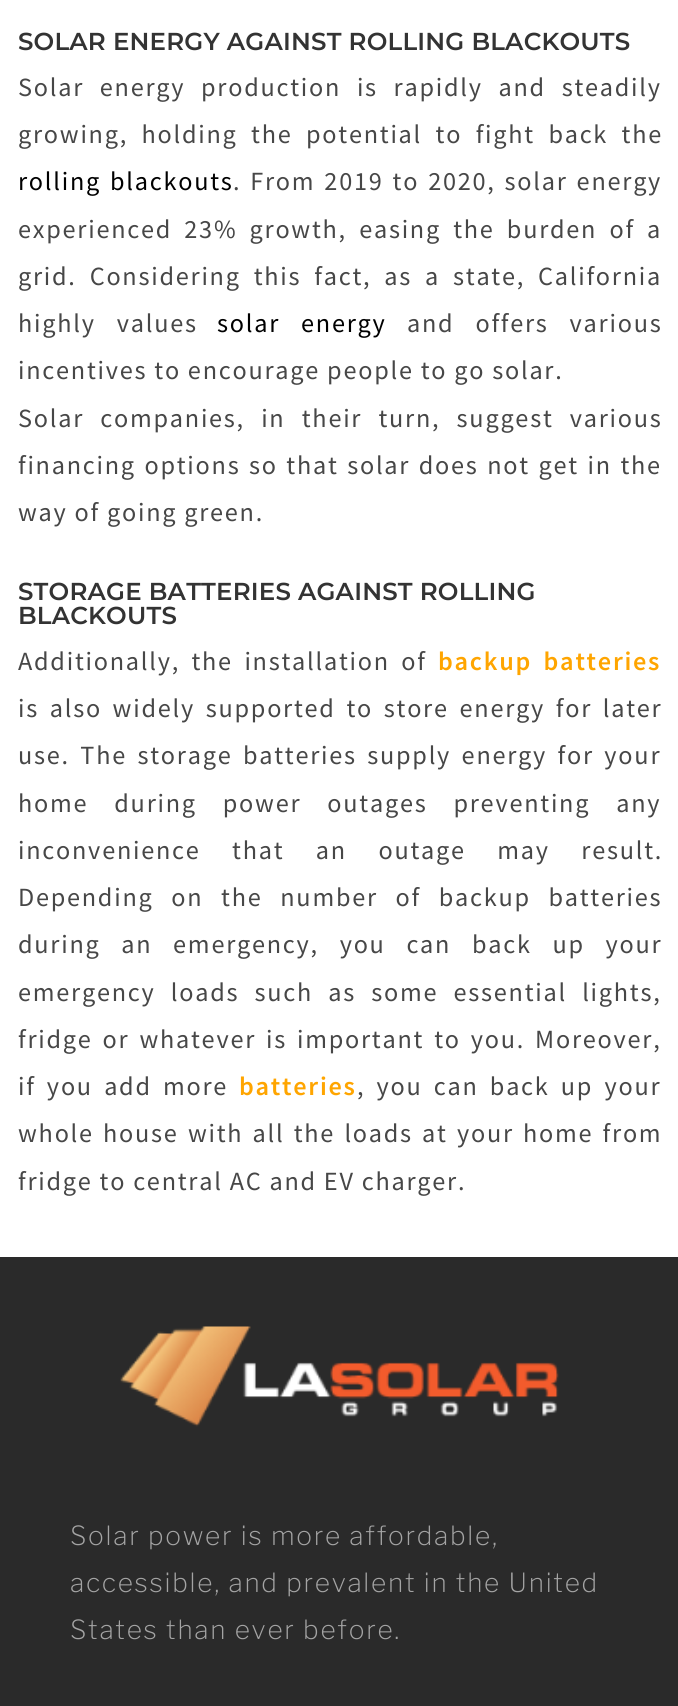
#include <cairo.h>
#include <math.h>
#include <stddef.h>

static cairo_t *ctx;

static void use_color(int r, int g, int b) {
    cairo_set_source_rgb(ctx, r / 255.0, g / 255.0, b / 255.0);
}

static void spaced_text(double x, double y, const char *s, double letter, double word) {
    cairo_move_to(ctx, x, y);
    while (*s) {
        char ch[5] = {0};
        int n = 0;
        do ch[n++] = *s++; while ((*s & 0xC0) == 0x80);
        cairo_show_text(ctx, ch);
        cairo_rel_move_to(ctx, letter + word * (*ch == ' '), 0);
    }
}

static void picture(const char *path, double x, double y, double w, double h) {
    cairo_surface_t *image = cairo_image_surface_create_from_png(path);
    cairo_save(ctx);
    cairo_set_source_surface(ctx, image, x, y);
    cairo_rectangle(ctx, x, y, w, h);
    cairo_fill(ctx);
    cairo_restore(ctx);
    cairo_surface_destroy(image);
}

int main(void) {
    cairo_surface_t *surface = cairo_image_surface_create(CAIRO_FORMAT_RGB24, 678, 1706);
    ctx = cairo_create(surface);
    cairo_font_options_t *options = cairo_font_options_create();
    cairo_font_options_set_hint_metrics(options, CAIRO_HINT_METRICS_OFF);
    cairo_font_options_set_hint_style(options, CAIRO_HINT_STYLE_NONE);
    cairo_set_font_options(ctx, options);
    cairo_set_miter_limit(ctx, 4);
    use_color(255, 255, 255);
    cairo_paint(ctx);
    cairo_select_font_face(ctx, "Montserrat SemiBold", CAIRO_FONT_SLANT_NORMAL, CAIRO_FONT_WEIGHT_NORMAL);
    cairo_set_font_size(ctx, 24.5);
    use_color(51, 51, 51);
    spaced_text(18, 50, "SOLAR ENERGY AGAINST ROLLING BLACKOUTS", 0.2, 0);
    cairo_select_font_face(ctx, "Source Sans Pro", CAIRO_FONT_SLANT_NORMAL, CAIRO_FONT_WEIGHT_NORMAL);
    cairo_set_font_size(ctx, 26.25);
    use_color(71, 71, 71);
    spaced_text(18, 96, "Solar energy production is rapidly and steadily", 1.75, 8.75);
    spaced_text(18, 143, "growing, holding the potential to fight back the", 1.75, 6.5);
    use_color(0, 0, 0);
    spaced_text(18, 190, "rolling blackouts", 1.75, 2);
    use_color(71, 71, 71);
    spaced_text(233, 190, ". From 2019 to 2020, solar energy", 1.75, 2);
    spaced_text(18, 238, "experienced 23% growth, easing the burden of a", 1.75, 5.25);
    spaced_text(18, 285, "grid. Considering this fact, as a state, California", 1.75, 6);
    spaced_text(18, 332, "highly values", 1.75, 14);
    use_color(0, 0, 0);
    spaced_text(217, 332, "solar energy", 1.75, 14);
    use_color(71, 71, 71);
    spaced_text(407, 332, "and offers various", 1.75, 14);
    spaced_text(18, 379, "incentives to encourage people to go solar.", 1.75, 0);
    spaced_text(18, 427, "Solar companies, in their turn, suggest various", 1.75, 9.25);
    spaced_text(18, 474, "financing options so that solar does not get in the", 1.75, 1.6);
    spaced_text(18, 521, "way of going green.", 1.75, 0);
    cairo_select_font_face(ctx, "Montserrat SemiBold", CAIRO_FONT_SLANT_NORMAL, CAIRO_FONT_WEIGHT_NORMAL);
    cairo_set_font_size(ctx, 24.5);
    use_color(51, 51, 51);
    spaced_text(18, 600, "STORAGE BATTERIES AGAINST ROLLING", 0.2, 0);
    spaced_text(18, 624, "BLACKOUTS", 0.2, 0);
    cairo_select_font_face(ctx, "Source Sans Pro", CAIRO_FONT_SLANT_NORMAL, CAIRO_FONT_WEIGHT_NORMAL);
    cairo_set_font_size(ctx, 26.25);
    use_color(71, 71, 71);
    spaced_text(18, 670, "Additionally, the installation of", 1.75, 4.5);
    cairo_select_font_face(ctx, "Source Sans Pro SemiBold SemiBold", CAIRO_FONT_SLANT_NORMAL, CAIRO_FONT_WEIGHT_NORMAL);
    use_color(255, 165, 0);
    spaced_text(438, 670, "backup batteries", 1.75, 4.5);
    cairo_select_font_face(ctx, "Source Sans Pro", CAIRO_FONT_SLANT_NORMAL, CAIRO_FONT_WEIGHT_NORMAL);
    use_color(71, 71, 71);
    spaced_text(18, 717, "is also widely supported to store energy for later", 1.75, 3.75);
    spaced_text(18, 764, "use. The storage batteries supply energy for your", 1.75, 3.5);
    spaced_text(18, 812, "home during power outages preventing any", 1.75, 19);
    spaced_text(18, 859, "inconvenience that an outage may result.", 1.75, 24.5);
    spaced_text(18, 906, "Depending on the number of backup batteries", 1.75, 10.75);
    spaced_text(18, 953, "during an emergency, you can back up your", 1.75, 13.75);
    spaced_text(18, 1001, "emergency loads such as some essential lights,", 1.75, 8.25);
    spaced_text(18, 1048, "fridge or whatever is important to you. Moreover,", 1.75, 3);
    spaced_text(18, 1095, "if you add more", 1.75, 4.25);
    cairo_select_font_face(ctx, "Source Sans Pro SemiBold SemiBold", CAIRO_FONT_SLANT_NORMAL, CAIRO_FONT_WEIGHT_NORMAL);
    use_color(255, 165, 0);
    spaced_text(239, 1095, "batteries", 1.75, 0);
    cairo_select_font_face(ctx, "Source Sans Pro", CAIRO_FONT_SLANT_NORMAL, CAIRO_FONT_WEIGHT_NORMAL);
    use_color(71, 71, 71);
    spaced_text(357, 1095, ", you can back up your", 1.75, 4.25);
    spaced_text(18, 1142, "whole house with all the loads at your home from", 1.75, 2.25);
    spaced_text(18, 1190, "fridge to central AC and EV charger.", 1.75, 0);
    use_color(42, 42, 42);
    cairo_rectangle(ctx, 0, 1257, 678, 449);
    cairo_fill(ctx);
    picture("img1.png", 120, 1326, 439, 101);
    cairo_select_font_face(ctx, "Libre Franklin ExtraLight", CAIRO_FONT_SLANT_NORMAL, CAIRO_FONT_WEIGHT_NORMAL);
    use_color(164, 164, 164);
    spaced_text(70, 1545, "Solar power is more affordable,", 1.75, 0);
    spaced_text(70, 1592, "accessible, and prevalent in the United", 1.75, 0);
    spaced_text(70, 1639, "States than ever before.", 1.75, 0);
    cairo_surface_write_to_png(surface, "result.png");
    cairo_font_options_destroy(options);
    cairo_destroy(ctx);
    cairo_surface_destroy(surface);
    return 0;
}
